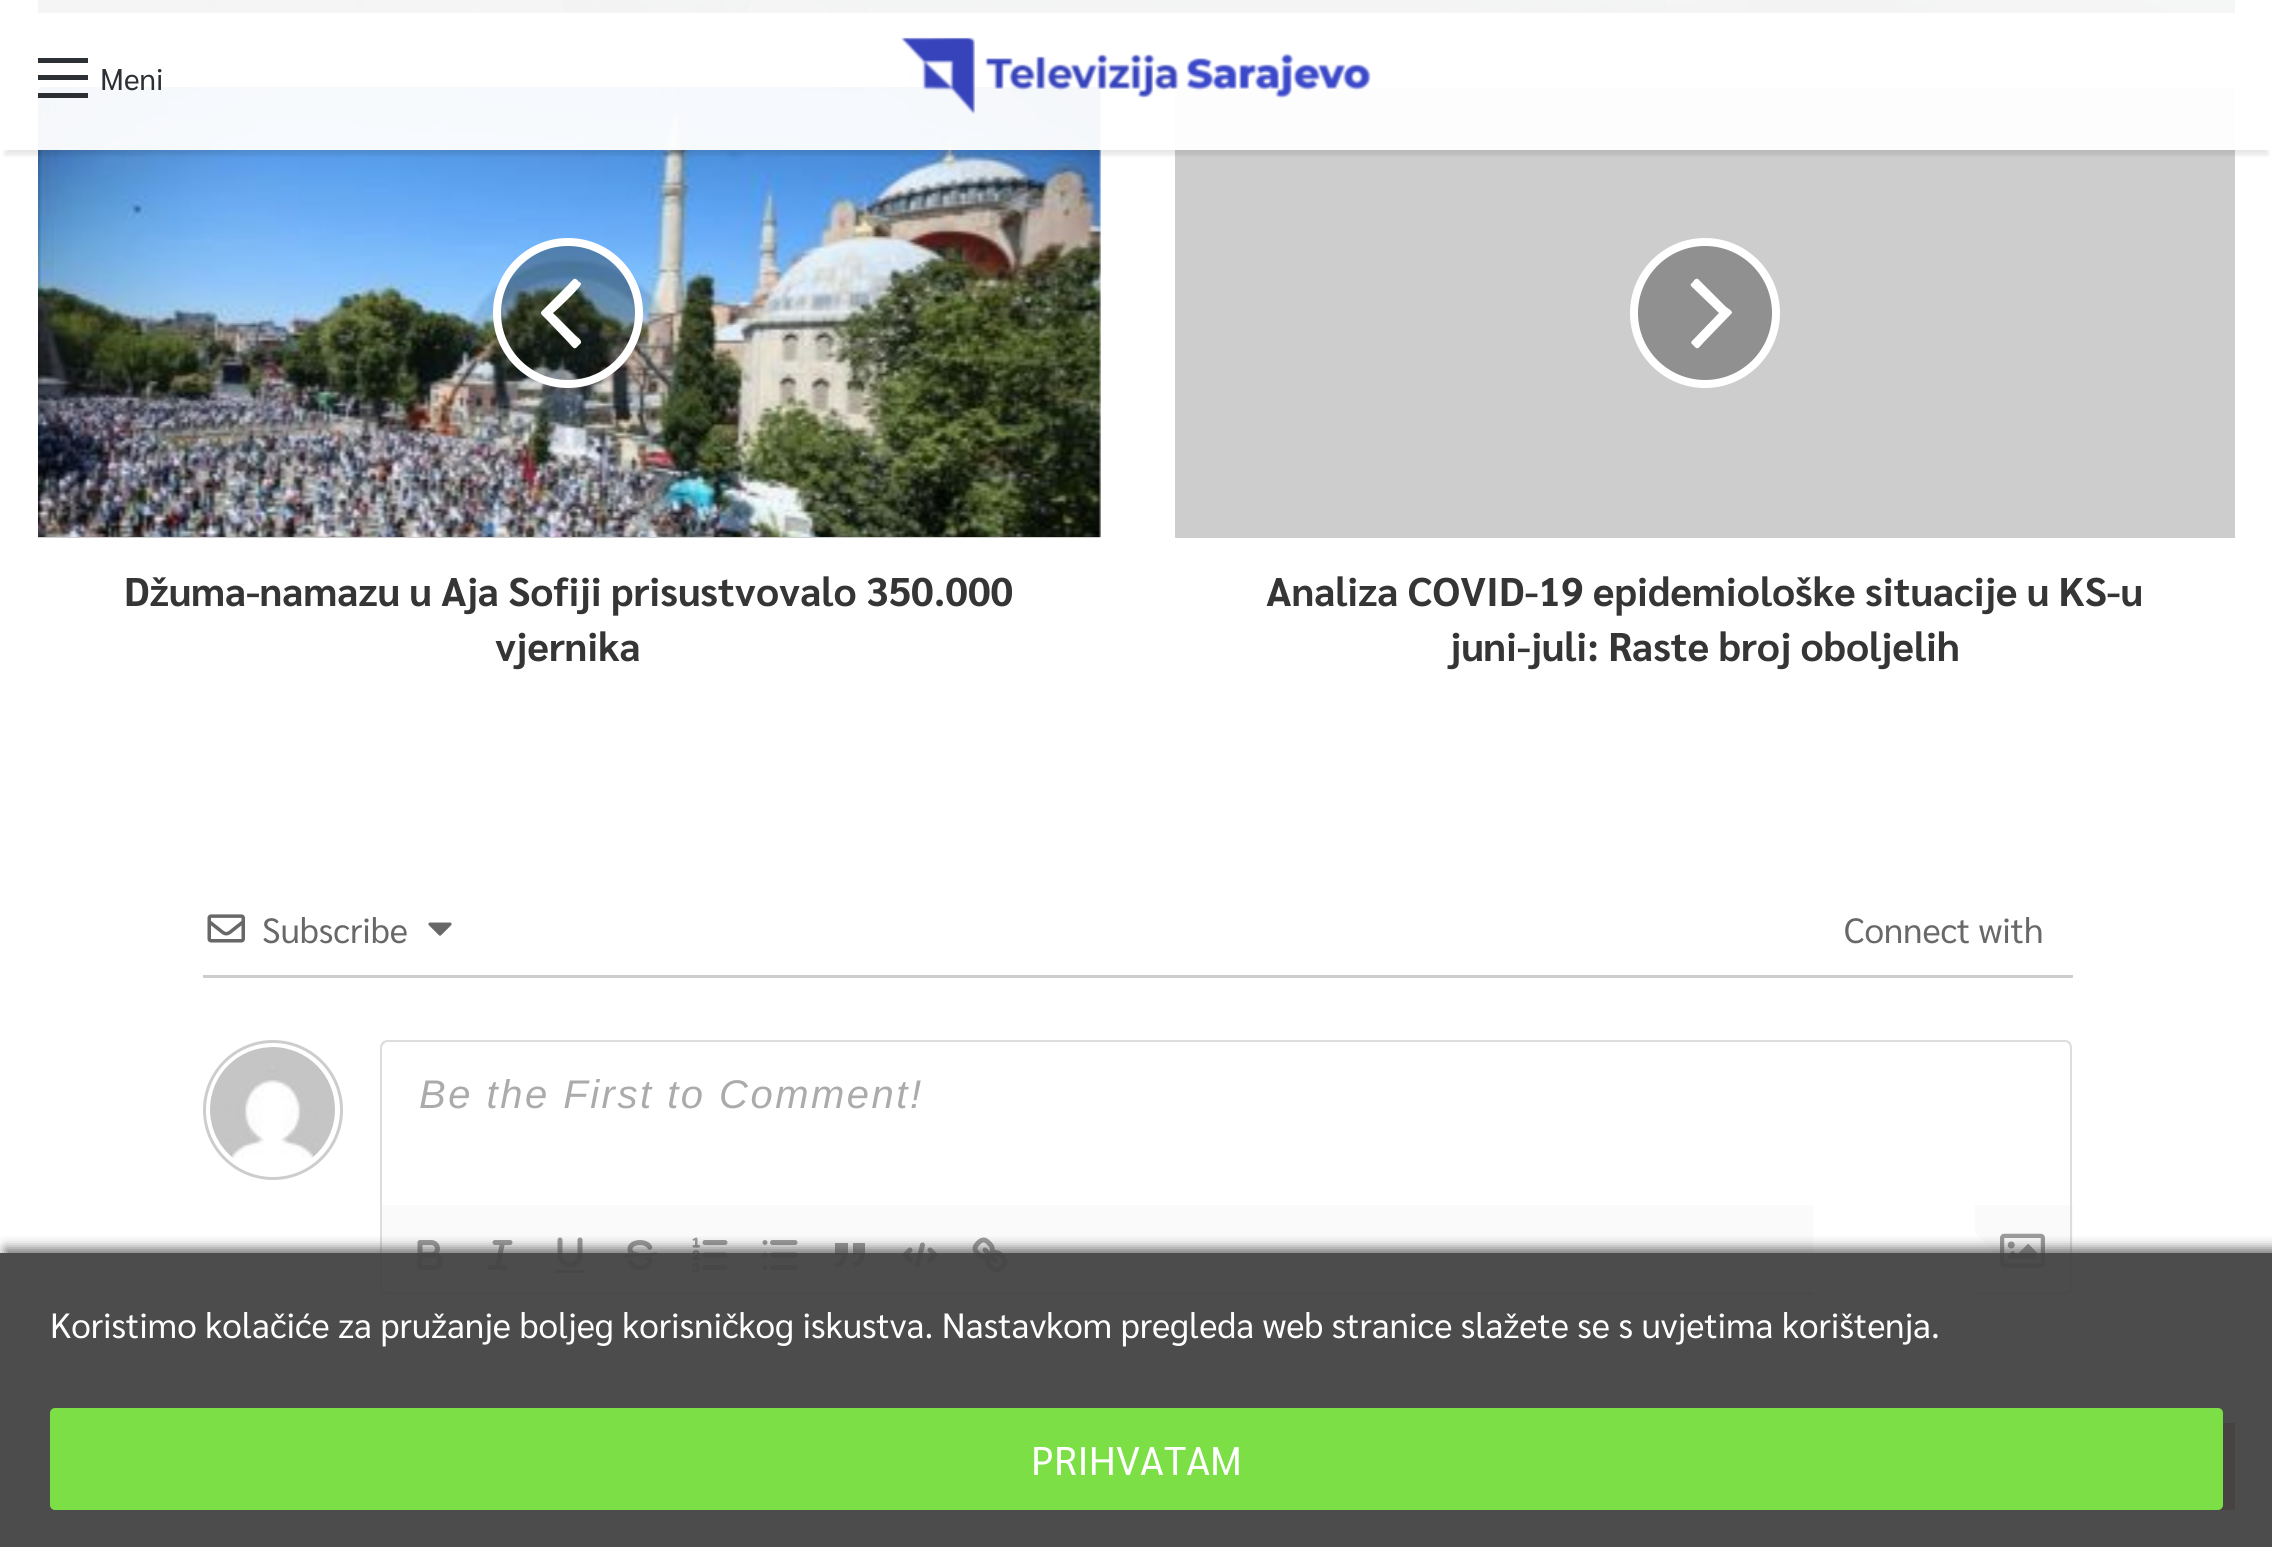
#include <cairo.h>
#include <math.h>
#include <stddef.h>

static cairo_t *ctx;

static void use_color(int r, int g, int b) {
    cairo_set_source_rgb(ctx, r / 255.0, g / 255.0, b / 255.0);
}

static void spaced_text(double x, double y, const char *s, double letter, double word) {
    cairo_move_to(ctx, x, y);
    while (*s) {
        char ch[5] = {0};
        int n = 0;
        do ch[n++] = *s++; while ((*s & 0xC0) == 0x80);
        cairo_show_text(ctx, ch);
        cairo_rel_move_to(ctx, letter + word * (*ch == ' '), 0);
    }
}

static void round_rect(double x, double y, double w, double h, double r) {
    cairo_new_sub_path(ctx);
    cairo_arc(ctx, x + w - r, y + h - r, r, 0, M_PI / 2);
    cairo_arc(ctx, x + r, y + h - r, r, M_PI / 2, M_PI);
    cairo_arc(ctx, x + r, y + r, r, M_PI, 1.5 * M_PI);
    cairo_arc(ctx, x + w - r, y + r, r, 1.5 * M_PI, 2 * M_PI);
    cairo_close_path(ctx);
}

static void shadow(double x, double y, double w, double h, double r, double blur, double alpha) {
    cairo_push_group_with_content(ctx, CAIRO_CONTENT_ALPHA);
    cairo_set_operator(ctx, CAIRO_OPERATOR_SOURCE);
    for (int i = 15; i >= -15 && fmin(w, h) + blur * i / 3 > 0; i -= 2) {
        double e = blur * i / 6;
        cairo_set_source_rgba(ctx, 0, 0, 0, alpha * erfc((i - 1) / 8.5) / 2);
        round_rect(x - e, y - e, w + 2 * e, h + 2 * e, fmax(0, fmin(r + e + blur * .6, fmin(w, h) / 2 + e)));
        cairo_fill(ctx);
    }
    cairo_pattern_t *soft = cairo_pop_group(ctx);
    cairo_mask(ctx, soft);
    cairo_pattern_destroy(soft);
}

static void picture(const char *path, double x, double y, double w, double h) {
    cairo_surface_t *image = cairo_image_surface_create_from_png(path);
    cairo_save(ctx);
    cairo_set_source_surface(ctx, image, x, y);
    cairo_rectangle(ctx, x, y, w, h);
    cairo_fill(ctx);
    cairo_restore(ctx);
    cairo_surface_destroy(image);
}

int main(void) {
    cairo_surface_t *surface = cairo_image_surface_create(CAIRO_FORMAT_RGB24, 2272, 1547);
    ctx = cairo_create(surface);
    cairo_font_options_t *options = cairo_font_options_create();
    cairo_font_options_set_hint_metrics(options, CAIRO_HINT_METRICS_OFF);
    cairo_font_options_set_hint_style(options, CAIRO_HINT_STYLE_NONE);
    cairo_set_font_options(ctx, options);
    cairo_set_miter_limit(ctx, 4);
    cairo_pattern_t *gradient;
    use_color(255, 255, 255);
    cairo_paint(ctx);
    picture("img2.png", 38, 0, 2197, 12);
    gradient = cairo_pattern_create_linear(1136, -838, 1136, 13);
    cairo_pattern_add_color_stop_rgba(gradient, 0, 0.012, 0.012, 0.012, 0);
    cairo_pattern_add_color_stop_rgba(gradient, 1, 0.012, 0.012, 0.012, 0.75);
    cairo_set_source(ctx, gradient);
    cairo_pattern_destroy(gradient);
    cairo_rectangle(ctx, 38, 0, 2197, 13);
    cairo_fill(ctx);
    gradient = cairo_pattern_create_radial(0, 0, 0, 0, 0, 1);
    cairo_pattern_set_matrix(gradient, &(cairo_matrix_t){1.0 / 622, 0, 0, 1.0 / 71, -1.0 * 1795 / 622, -1.0 * 25 / 71});
    cairo_pattern_add_color_stop_rgba(gradient, 0, 0.012, 0.012, 0.012, 0.8);
    cairo_pattern_add_color_stop_rgba(gradient, 0.65, 0.012, 0.012, 0.012, 0);
    cairo_pattern_add_color_stop_rgba(gradient, 1, 0.898, 0.898, 0.898, 0);
    cairo_set_source(ctx, gradient);
    cairo_pattern_destroy(gradient);
    cairo_rectangle(ctx, 1426, 0, 738, 13);
    cairo_fill(ctx);
    use_color(205, 205, 205);
    cairo_new_path(ctx);
    cairo_move_to(ctx, 43, 88);
    cairo_line_to(ctx, 1100, 88);
    cairo_line_to(ctx, 1100, 538);
    cairo_line_to(ctx, 38, 538);
    cairo_line_to(ctx, 38, 93);
    cairo_curve_to(ctx, 38, 90, 40, 88, 43, 88);
    cairo_close_path(ctx);
    cairo_fill(ctx);
    picture("img3.png", 38, 87, 1063, 450);
    cairo_new_path(ctx);
    cairo_move_to(ctx, 1175, 88);
    cairo_line_to(ctx, 2230, 88);
    cairo_curve_to(ctx, 2233, 88, 2235, 90, 2235, 93);
    cairo_line_to(ctx, 2235, 538);
    cairo_line_to(ctx, 1175, 538);
    cairo_close_path(ctx);
    cairo_fill(ctx);
    cairo_save(ctx);
    cairo_rectangle(ctx, 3, 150, 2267, 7);
    cairo_clip(ctx);
    use_color(0, 0, 0);
    shadow(5, 15, 2263, 140, 0, 2.5, 0.1);
    cairo_restore(ctx);
    cairo_set_source_rgba(ctx, 1, 1, 1, 0.95);
    cairo_rectangle(ctx, 38, 0, 2197, 150);
    cairo_fill(ctx);
    use_color(44, 47, 52);
    cairo_rectangle(ctx, 38, 75, 50, 5);
    cairo_fill(ctx);
    cairo_rectangle(ctx, 38, 58, 50, 5);
    cairo_fill(ctx);
    cairo_rectangle(ctx, 38, 93, 50, 5);
    cairo_fill(ctx);
    cairo_select_font_face(ctx, "Sarabun", CAIRO_FONT_SLANT_NORMAL, CAIRO_FONT_WEIGHT_NORMAL);
    cairo_set_font_size(ctx, 30);
    cairo_move_to(ctx, 100, 90);
    cairo_show_text(ctx, "Meni");
    picture("img1.png", 901, 37, 470, 77);
    cairo_set_source_rgba(ctx, 0.012, 0.012, 0.012, 0.3);
    cairo_arc(ctx, 568, 313, 71, 0, 2 * M_PI);
    cairo_fill_preserve(ctx);
    use_color(255, 255, 255);
    cairo_set_line_width(ctx, 8);
    cairo_stroke(ctx);
    cairo_new_path(ctx);
    cairo_move_to(ctx, 581, 284);
    cairo_curve_to(ctx, 581, 287, 557, 310, 553, 313);
    cairo_line_to(ctx, 576, 336);
    cairo_curve_to(ctx, 577, 337, 582, 340, 581, 343);
    cairo_line_to(ctx, 578, 346);
    cairo_curve_to(ctx, 574, 351, 573, 347, 568, 342);
    cairo_line_to(ctx, 547, 320);
    cairo_curve_to(ctx, 539, 312, 539, 314, 547, 306);
    cairo_line_to(ctx, 568, 285);
    cairo_curve_to(ctx, 574, 279, 574, 276, 579, 282);
    cairo_curve_to(ctx, 580, 282, 581, 283, 581, 284);
    cairo_close_path(ctx);
    cairo_fill(ctx);
    cairo_select_font_face(ctx, "Sarabun", CAIRO_FONT_SLANT_NORMAL, CAIRO_FONT_WEIGHT_BOLD);
    cairo_set_font_size(ctx, 40);
    use_color(53, 53, 53);
    cairo_move_to(ctx, 124, 606);
    cairo_show_text(ctx, "Džuma-namazu u Aja Sofiji prisustvovalo 350.000");
    cairo_move_to(ctx, 495, 661);
    cairo_show_text(ctx, "vjernika");
    use_color(144, 144, 144);
    cairo_new_path(ctx);
    cairo_arc(ctx, 1705, 313, 71, 0, 2 * M_PI);
    cairo_fill_preserve(ctx);
    use_color(255, 255, 255);
    cairo_stroke(ctx);
    cairo_new_path(ctx);
    cairo_move_to(ctx, 1732, 313);
    cairo_line_to(ctx, 1704, 342);
    cairo_curve_to(ctx, 1699, 347, 1698, 351, 1694, 346);
    cairo_line_to(ctx, 1692, 344);
    cairo_curve_to(ctx, 1691, 343, 1691, 342, 1692, 341);
    cairo_line_to(ctx, 1719, 313);
    cairo_line_to(ctx, 1691, 286);
    cairo_curve_to(ctx, 1690, 284, 1692, 283, 1693, 282);
    cairo_curve_to(ctx, 1694, 280, 1696, 278, 1698, 279);
    cairo_line_to(ctx, 1725, 306);
    cairo_curve_to(ctx, 1728, 309, 1732, 310, 1732, 313);
    cairo_close_path(ctx);
    cairo_fill(ctx);
    use_color(53, 53, 53);
    cairo_move_to(ctx, 1266, 606);
    cairo_show_text(ctx, "Analiza COVID-19 epidemiološke situacije u KS-u");
    cairo_move_to(ctx, 1450, 661);
    cairo_show_text(ctx, "juni-juli: Raste broj oboljelih");
    use_color(205, 205, 205);
    cairo_rectangle(ctx, 203, 975, 1870, 3);
    cairo_fill(ctx);
    picture("img4.png", 207, 914, 38, 29);
    cairo_select_font_face(ctx, "Sarabun", CAIRO_FONT_SLANT_NORMAL, CAIRO_FONT_WEIGHT_NORMAL);
    cairo_set_font_size(ctx, 35);
    use_color(104, 104, 104);
    cairo_move_to(ctx, 262, 943);
    cairo_show_text(ctx, "Subscribe");
    picture("img5.png", 428, 922, 24, 14);
    cairo_move_to(ctx, 1844, 943);
    cairo_show_text(ctx, "Connect with");
    cairo_new_path(ctx);
    cairo_arc(ctx, 273, 1110, 68.5, 0, 2 * M_PI);
    use_color(205, 205, 205);
    cairo_set_line_width(ctx, 3);
    cairo_stroke(ctx);
    picture("img6.png", 210, 1047, 125, 111);
    use_color(221, 221, 221);
    cairo_set_fill_rule(ctx, CAIRO_FILL_RULE_EVEN_ODD);
    cairo_new_path(ctx);
    cairo_move_to(ctx, 388, 1040);
    cairo_line_to(ctx, 2065, 1040);
    cairo_curve_to(ctx, 2069, 1040, 2072, 1043, 2072, 1048);
    cairo_line_to(ctx, 2072, 1205);
    cairo_line_to(ctx, 380, 1205);
    cairo_line_to(ctx, 380, 1048);
    cairo_curve_to(ctx, 380, 1043, 383, 1040, 388, 1040);
    cairo_close_path(ctx);
    cairo_move_to(ctx, 388, 1042);
    cairo_line_to(ctx, 2065, 1042);
    cairo_curve_to(ctx, 2068, 1042, 2070, 1045, 2070, 1048);
    cairo_line_to(ctx, 2070, 1205);
    cairo_line_to(ctx, 382, 1205);
    cairo_line_to(ctx, 382, 1048);
    cairo_curve_to(ctx, 382, 1045, 385, 1042, 388, 1042);
    cairo_close_path(ctx);
    cairo_fill(ctx);
    cairo_select_font_face(ctx, "Liberation Sans", CAIRO_FONT_SLANT_ITALIC, CAIRO_FONT_WEIGHT_NORMAL);
    cairo_set_font_size(ctx, 40);
    use_color(171, 171, 171);
    spaced_text(419, 1108, "Be the First to Comment!", 2.5, 0);
    use_color(250, 250, 250);
    cairo_new_path(ctx);
    cairo_move_to(ctx, 380, 1205);
    cairo_line_to(ctx, 2073, 1205);
    cairo_line_to(ctx, 2073, 1287);
    cairo_curve_to(ctx, 2073, 1291.5, 2069.5, 1295, 2065, 1295);
    cairo_line_to(ctx, 388, 1295);
    cairo_curve_to(ctx, 383.5, 1295, 380, 1291.5, 380, 1287);
    cairo_close_path(ctx);
    cairo_fill(ctx);
    use_color(221, 221, 221);
    cairo_new_path(ctx);
    cairo_move_to(ctx, 380, 1205);
    cairo_line_to(ctx, 2072, 1205);
    cairo_line_to(ctx, 2072, 1288);
    cairo_curve_to(ctx, 2072, 1292, 2069, 1295, 2065, 1295);
    cairo_line_to(ctx, 388, 1295);
    cairo_curve_to(ctx, 383, 1295, 380, 1292, 380, 1288);
    cairo_close_path(ctx);
    cairo_move_to(ctx, 382, 1205);
    cairo_line_to(ctx, 2070, 1205);
    cairo_line_to(ctx, 2070, 1288);
    cairo_curve_to(ctx, 2070, 1290, 2068, 1292, 2065, 1292);
    cairo_line_to(ctx, 388, 1292);
    cairo_curve_to(ctx, 385, 1292, 382, 1290, 382, 1288);
    cairo_close_path(ctx);
    cairo_fill(ctx);
    picture("img7.png", 417, 1240, 26, 30);
    cairo_new_path(ctx);
    cairo_move_to(ctx, 495, 1242.5);
    cairo_line_to(ctx, 510, 1242.5);
    cairo_move_to(ctx, 490, 1267.5);
    cairo_line_to(ctx, 505, 1267.5);
    cairo_move_to(ctx, 497.5, 1267.5);
    cairo_line_to(ctx, 502.5, 1242.5);
    use_color(154, 154, 154);
    cairo_set_line_width(ctx, 5);
    cairo_set_line_cap(ctx, CAIRO_LINE_CAP_ROUND);
    cairo_set_line_join(ctx, CAIRO_LINE_JOIN_ROUND);
    cairo_stroke(ctx);
    cairo_new_path(ctx);
    cairo_move_to(ctx, 560, 1240);
    cairo_line_to(ctx, 560, 1255);
    cairo_curve_to(ctx, 560, 1260.5, 564.5, 1265, 570, 1265);
    cairo_curve_to(ctx, 575.5, 1265, 580, 1260.5, 580, 1255);
    cairo_line_to(ctx, 580, 1240);
    cairo_stroke(ctx);
    round_rect(555, 1270, 30, 3, 1.5);
    cairo_fill(ctx);
    picture("img8.png", 622, 1240, 36, 30);
    picture("img9.png", 692, 1237, 36, 36);
    picture("img10.png", 762, 1240, 36, 30);
    picture("img11.png", 835, 1243, 30, 25);
    cairo_new_path(ctx);
    cairo_move_to(ctx, 910, 1250);
    cairo_line_to(ctx, 905, 1255);
    cairo_line_to(ctx, 910, 1260);
    cairo_move_to(ctx, 930, 1250);
    cairo_line_to(ctx, 935, 1255);
    cairo_line_to(ctx, 930, 1260);
    cairo_move_to(ctx, 922.5, 1245);
    cairo_line_to(ctx, 917.5, 1265);
    cairo_stroke(ctx);
    picture("img12.png", 972, 1237, 36, 36);
    use_color(255, 255, 255);
    round_rect(1813, 1128, 162, 247, 10);
    cairo_fill(ctx);
    cairo_set_fill_rule(ctx, CAIRO_FILL_RULE_WINDING);
    cairo_new_path(ctx);
    cairo_move_to(ctx, 1975, 1268);
    cairo_line_to(ctx, 1975, 1233);
    cairo_line_to(ctx, 1992.5, 1250.5);
    cairo_close_path(ctx);
    cairo_fill(ctx);
    picture("img13.png", 2000, 1233, 45, 35);
    use_color(170, 46, 44);
    cairo_rectangle(ctx, 2218, 1423, 17, 87);
    cairo_fill(ctx);
    cairo_save(ctx);
    cairo_rectangle(ctx, 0, 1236, 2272, 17);
    cairo_clip(ctx);
    use_color(68, 68, 68);
    shadow(5, 1248, 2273, 295, 0, 6, 0.75);
    cairo_restore(ctx);
    cairo_set_source_rgba(ctx, 0.267, 0.267, 0.267, 0.95);
    cairo_rectangle(ctx, 0, 1253, 2272, 294);
    cairo_fill(ctx);
    cairo_select_font_face(ctx, "Sarabun", CAIRO_FONT_SLANT_NORMAL, CAIRO_FONT_WEIGHT_NORMAL);
    cairo_set_font_size(ctx, 35);
    use_color(255, 255, 255);
    cairo_move_to(ctx, 50, 1338);
    cairo_show_text(ctx, "Koristimo kolačiće za pružanje boljeg korisničkog iskustva. Nastavkom pregleda web stranice slažete se s uvjetima korištenja.");
    use_color(124, 223, 70);
    round_rect(50, 1408, 2173, 102, 5);
    cairo_fill(ctx);
    cairo_set_font_size(ctx, 40);
    use_color(255, 255, 255);
    cairo_move_to(ctx, 1031, 1475);
    cairo_show_text(ctx, "PRIHVATAM");
    cairo_surface_write_to_png(surface, "result.png");
    cairo_font_options_destroy(options);
    cairo_destroy(ctx);
    cairo_surface_destroy(surface);
    return 0;
}
